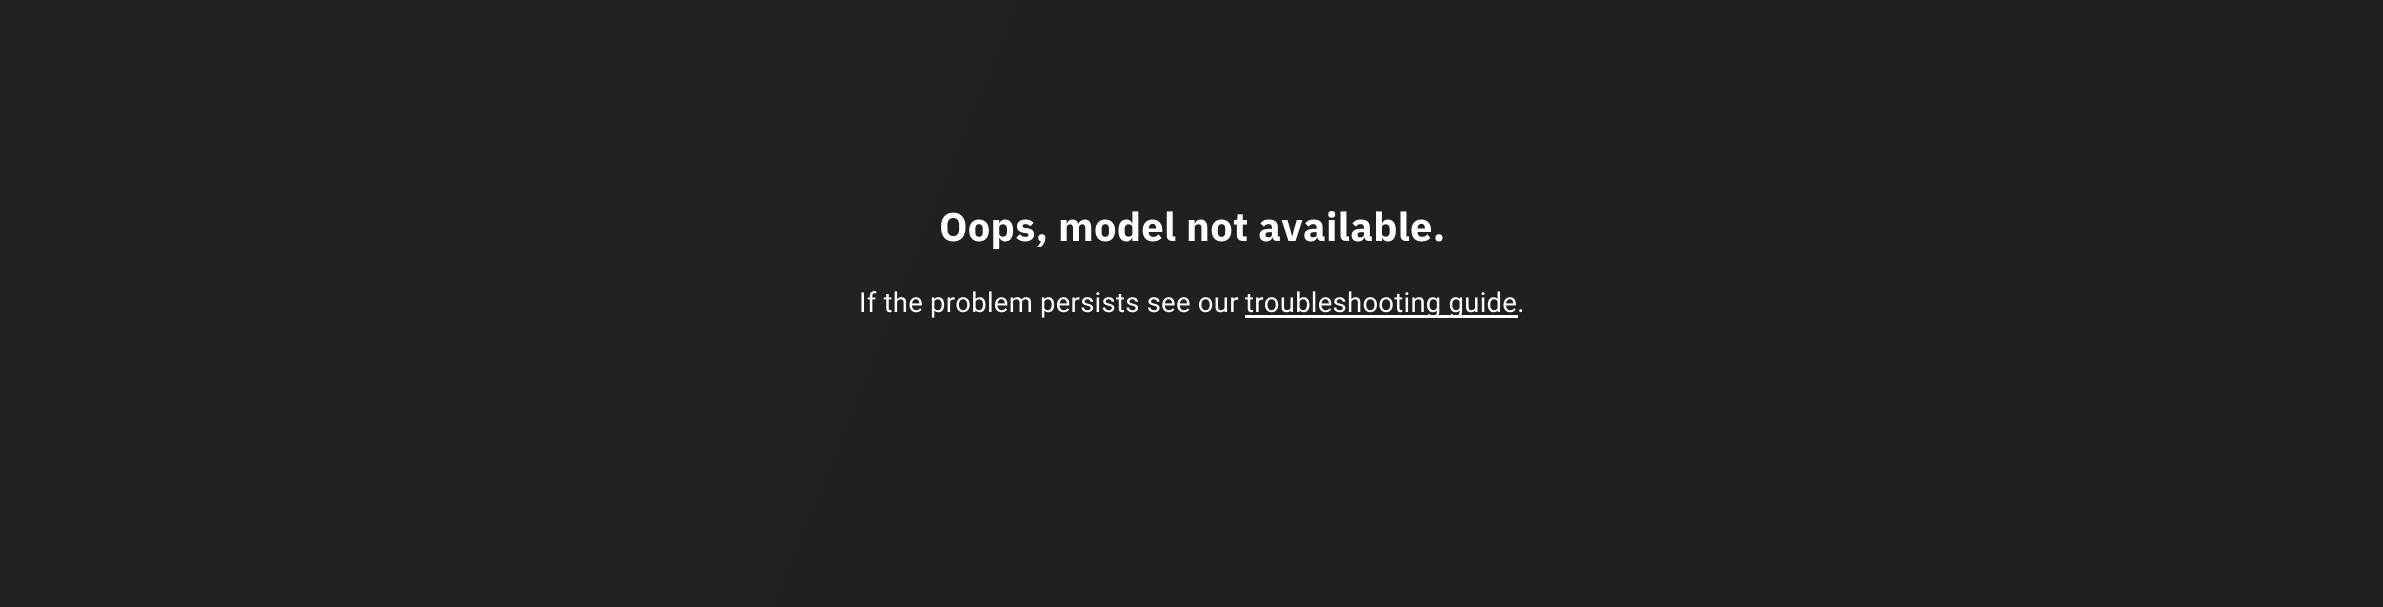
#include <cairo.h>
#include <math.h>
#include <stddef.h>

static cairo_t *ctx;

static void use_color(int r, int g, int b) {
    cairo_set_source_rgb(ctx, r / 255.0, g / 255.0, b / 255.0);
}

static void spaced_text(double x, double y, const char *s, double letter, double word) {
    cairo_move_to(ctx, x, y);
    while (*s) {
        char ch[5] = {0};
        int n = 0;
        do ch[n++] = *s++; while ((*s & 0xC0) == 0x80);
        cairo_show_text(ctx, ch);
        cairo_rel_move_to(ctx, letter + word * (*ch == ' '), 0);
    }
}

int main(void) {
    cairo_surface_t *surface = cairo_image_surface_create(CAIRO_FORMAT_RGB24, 2383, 607);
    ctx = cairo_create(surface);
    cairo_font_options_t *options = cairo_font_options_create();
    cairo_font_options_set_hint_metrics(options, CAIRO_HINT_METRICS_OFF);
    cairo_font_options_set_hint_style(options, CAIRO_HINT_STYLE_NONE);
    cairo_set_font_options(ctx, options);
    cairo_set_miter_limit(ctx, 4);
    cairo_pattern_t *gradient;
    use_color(255, 255, 255);
    cairo_paint(ctx);
    gradient = cairo_pattern_create_linear(62, -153, 2322, 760);
    cairo_pattern_add_color_stop_rgba(gradient, 0, 0.129, 0.129, 0.129, 1);
    cairo_pattern_add_color_stop_rgba(gradient, 1, 0.125, 0.125, 0.125, 1);
    cairo_set_source(ctx, gradient);
    cairo_pattern_destroy(gradient);
    cairo_rectangle(ctx, 0, 0, 2383, 607);
    cairo_fill(ctx);
    cairo_select_font_face(ctx, "IBM Plex Sans", CAIRO_FONT_SLANT_NORMAL, CAIRO_FONT_WEIGHT_BOLD);
    cairo_set_font_size(ctx, 40);
    use_color(255, 255, 255);
    spaced_text(939, 241, "Oops, model not available.", 0.25, 0);
    cairo_select_font_face(ctx, "Roboto", CAIRO_FONT_SLANT_NORMAL, CAIRO_FONT_WEIGHT_NORMAL);
    cairo_set_font_size(ctx, 27.5);
    spaced_text(859, 312, "If the problem persists see our", 0.25, 0);
    cairo_rectangle(ctx, 1245, 315, 273, 3);
    cairo_fill(ctx);
    spaced_text(1245, 312, "troubleshooting guide.", 0.25, 0);
    cairo_surface_write_to_png(surface, "result.png");
    cairo_font_options_destroy(options);
    cairo_destroy(ctx);
    cairo_surface_destroy(surface);
    return 0;
}
